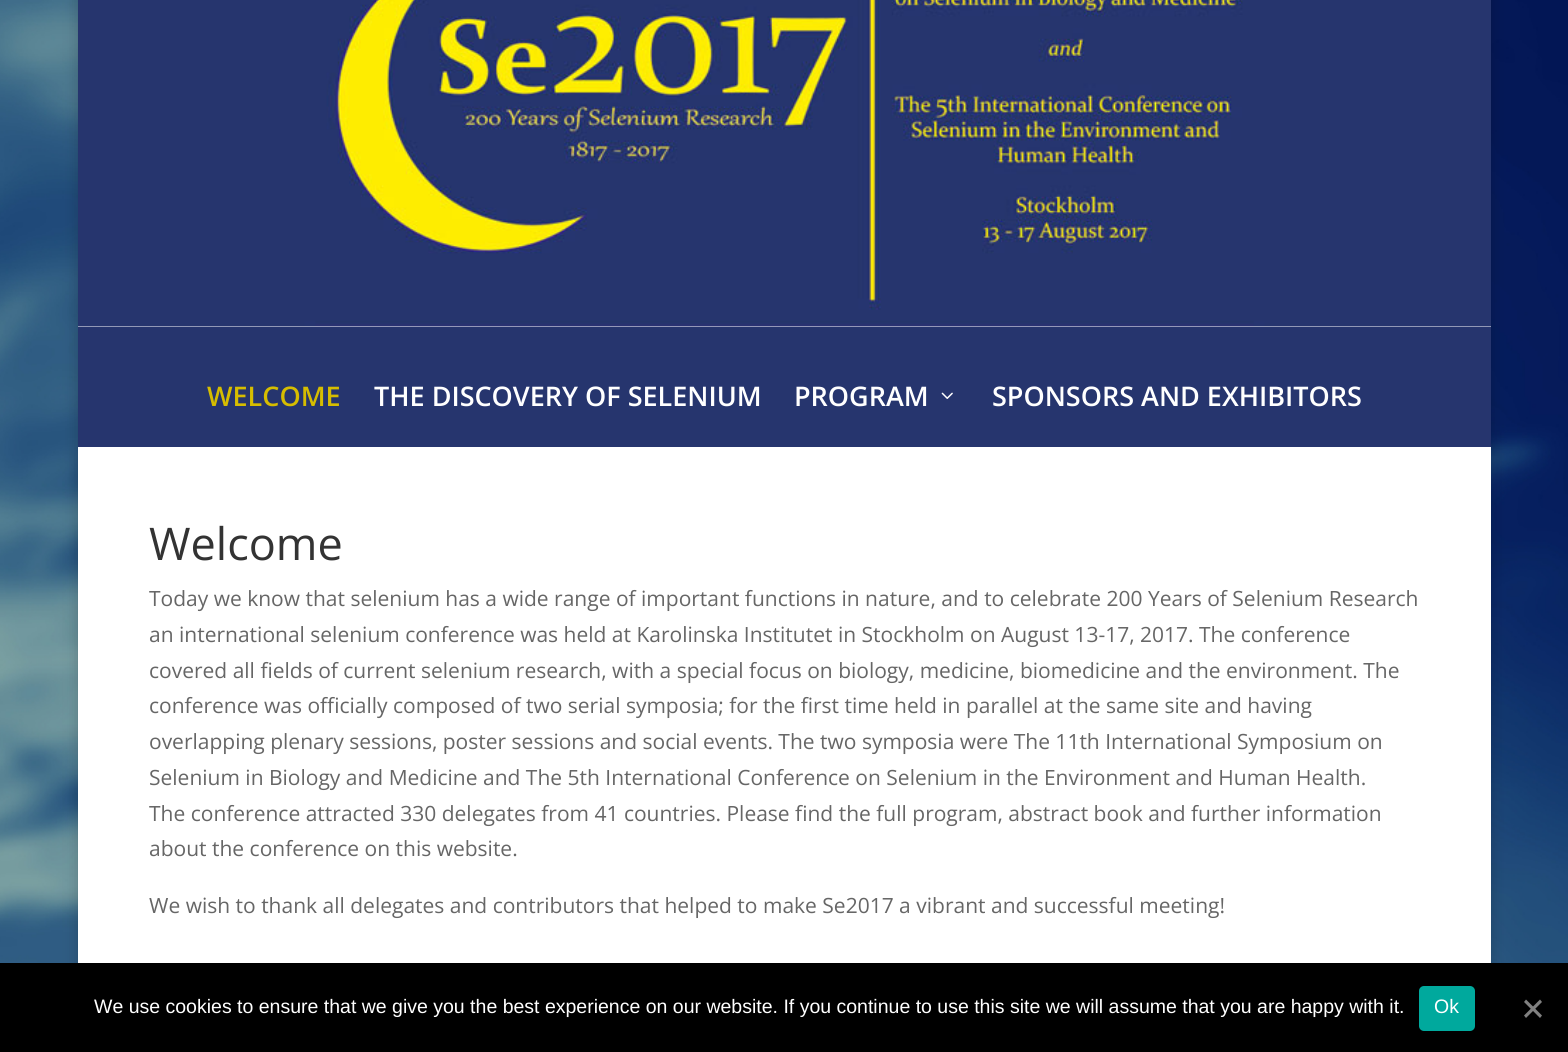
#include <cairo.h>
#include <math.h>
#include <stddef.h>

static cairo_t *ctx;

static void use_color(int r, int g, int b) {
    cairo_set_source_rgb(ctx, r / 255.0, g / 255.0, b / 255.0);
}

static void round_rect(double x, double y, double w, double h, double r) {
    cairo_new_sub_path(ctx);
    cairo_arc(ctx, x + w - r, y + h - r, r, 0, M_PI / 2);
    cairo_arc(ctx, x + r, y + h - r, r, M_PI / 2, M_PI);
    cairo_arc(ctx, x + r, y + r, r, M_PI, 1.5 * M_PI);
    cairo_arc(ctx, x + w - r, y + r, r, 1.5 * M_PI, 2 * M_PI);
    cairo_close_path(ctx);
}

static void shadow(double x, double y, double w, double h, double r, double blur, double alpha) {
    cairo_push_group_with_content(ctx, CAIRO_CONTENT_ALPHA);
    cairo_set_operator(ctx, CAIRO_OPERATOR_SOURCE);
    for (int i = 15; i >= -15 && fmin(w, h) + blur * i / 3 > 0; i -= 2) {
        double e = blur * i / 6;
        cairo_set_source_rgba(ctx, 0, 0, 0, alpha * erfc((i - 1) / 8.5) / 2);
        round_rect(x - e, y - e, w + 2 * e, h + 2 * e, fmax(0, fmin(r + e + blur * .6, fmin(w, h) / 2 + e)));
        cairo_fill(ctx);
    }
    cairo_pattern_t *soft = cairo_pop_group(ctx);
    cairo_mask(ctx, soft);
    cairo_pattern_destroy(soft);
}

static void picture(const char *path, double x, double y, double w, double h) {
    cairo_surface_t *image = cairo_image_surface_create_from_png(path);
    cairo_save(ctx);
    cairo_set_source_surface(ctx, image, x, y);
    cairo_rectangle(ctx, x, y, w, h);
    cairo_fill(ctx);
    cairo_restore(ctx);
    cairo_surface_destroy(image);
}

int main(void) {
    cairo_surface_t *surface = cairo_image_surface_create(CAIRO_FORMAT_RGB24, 1568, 1052);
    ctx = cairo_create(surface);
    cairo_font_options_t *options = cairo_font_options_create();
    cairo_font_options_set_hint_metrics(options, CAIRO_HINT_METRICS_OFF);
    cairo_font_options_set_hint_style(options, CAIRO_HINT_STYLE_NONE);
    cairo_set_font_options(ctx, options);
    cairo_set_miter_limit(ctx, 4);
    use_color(255, 255, 255);
    cairo_paint(ctx);
    picture("img1.png", 0, 0, 1568, 963);
    use_color(0, 0, 0);
    shadow(78, -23, 1413, 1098, 0, 7.5, 0.2);
    use_color(255, 255, 255);
    cairo_rectangle(ctx, 78, 326, 1413, 1);
    cairo_fill(ctx);
    picture("img2.png", 78, 0, 1413, 327);
    use_color(38, 53, 110);
    cairo_rectangle(ctx, 78, 327, 1413, 120);
    cairo_fill(ctx);
    cairo_select_font_face(ctx, "Open Sans SemiBold", CAIRO_FONT_SLANT_NORMAL, CAIRO_FONT_WEIGHT_NORMAL);
    cairo_set_font_size(ctx, 27);
    use_color(214, 189, 0);
    cairo_move_to(ctx, 207, 406);
    cairo_show_text(ctx, "WELCOME");
    use_color(255, 255, 255);
    cairo_move_to(ctx, 374, 406);
    cairo_show_text(ctx, "THE DISCOVERY OF SELENIUM");
    cairo_move_to(ctx, 794, 406);
    cairo_show_text(ctx, "PROGRAM");
    picture("img3.png", 941, 392, 12, 7);
    cairo_move_to(ctx, 992, 406);
    cairo_show_text(ctx, "SPONSORS AND EXHIBITORS");
    cairo_rectangle(ctx, 78, 447, 1413, 516);
    cairo_fill(ctx);
    cairo_select_font_face(ctx, "Open Sans", CAIRO_FONT_SLANT_NORMAL, CAIRO_FONT_WEIGHT_NORMAL);
    cairo_set_font_size(ctx, 45);
    use_color(51, 51, 51);
    cairo_move_to(ctx, 149, 560);
    cairo_show_text(ctx, "Welcome");
    cairo_set_font_size(ctx, 21);
    use_color(102, 102, 102);
    cairo_move_to(ctx, 149, 606);
    cairo_show_text(ctx, "Today we know that selenium has a wide range of important functions in nature, and to celebrate 200 Years of Selenium Research");
    cairo_move_to(ctx, 149, 642);
    cairo_show_text(ctx, "an international selenium conference was held at Karolinska Institutet in Stockholm on August 13-17, 2017. The conference");
    cairo_move_to(ctx, 149, 678);
    cairo_show_text(ctx, "covered all fields of current selenium research, with a special focus on biology, medicine, biomedicine and the environment. The");
    cairo_move_to(ctx, 149, 713);
    cairo_show_text(ctx, "conference was officially composed of two serial symposia; for the first time held in parallel at the same site and having");
    cairo_move_to(ctx, 149, 749);
    cairo_show_text(ctx, "overlapping plenary sessions, poster sessions and social events. The two symposia were The 11th International Symposium on");
    cairo_move_to(ctx, 149, 785);
    cairo_show_text(ctx, "Selenium in Biology and Medicine and The 5th International Conference on Selenium in the Environment and Human Health.");
    cairo_move_to(ctx, 149, 821);
    cairo_show_text(ctx, "The conference attracted 330 delegates from 41 countries. Please find the full program, abstract book and further information");
    cairo_move_to(ctx, 149, 856);
    cairo_show_text(ctx, "about the conference on this website.");
    cairo_move_to(ctx, 149, 913);
    cairo_show_text(ctx, "We wish to thank all delegates and contributors that helped to make Se2017 a vibrant and successful meeting!");
    use_color(0, 0, 0);
    cairo_rectangle(ctx, 0, 963, 1568, 89);
    cairo_fill(ctx);
    cairo_select_font_face(ctx, "Liberation Sans", CAIRO_FONT_SLANT_NORMAL, CAIRO_FONT_WEIGHT_NORMAL);
    cairo_set_font_size(ctx, 19.5);
    use_color(255, 255, 255);
    cairo_move_to(ctx, 94, 1013);
    cairo_show_text(ctx, "We use cookies to ensure that we give you the best experience on our website. If you continue to use this site we will assume that you are happy with it.");
    use_color(0, 169, 157);
    round_rect(1419, 986, 56, 45, 5);
    cairo_fill(ctx);
    use_color(255, 255, 255);
    cairo_move_to(ctx, 1434, 1013);
    cairo_show_text(ctx, "Ok");
    use_color(128, 128, 128);
    cairo_new_path(ctx);
    cairo_move_to(ctx, 1540, 999.5);
    cairo_line_to(ctx, 1542, 1002);
    cairo_line_to(ctx, 1526, 1018);
    cairo_line_to(ctx, 1524, 1015.5);
    cairo_close_path(ctx);
    cairo_fill(ctx);
    cairo_new_path(ctx);
    cairo_move_to(ctx, 1524, 1002);
    cairo_line_to(ctx, 1526, 999.5);
    cairo_line_to(ctx, 1542, 1015.5);
    cairo_line_to(ctx, 1540, 1018);
    cairo_close_path(ctx);
    cairo_fill(ctx);
    cairo_surface_write_to_png(surface, "result.png");
    cairo_font_options_destroy(options);
    cairo_destroy(ctx);
    cairo_surface_destroy(surface);
    return 0;
}
